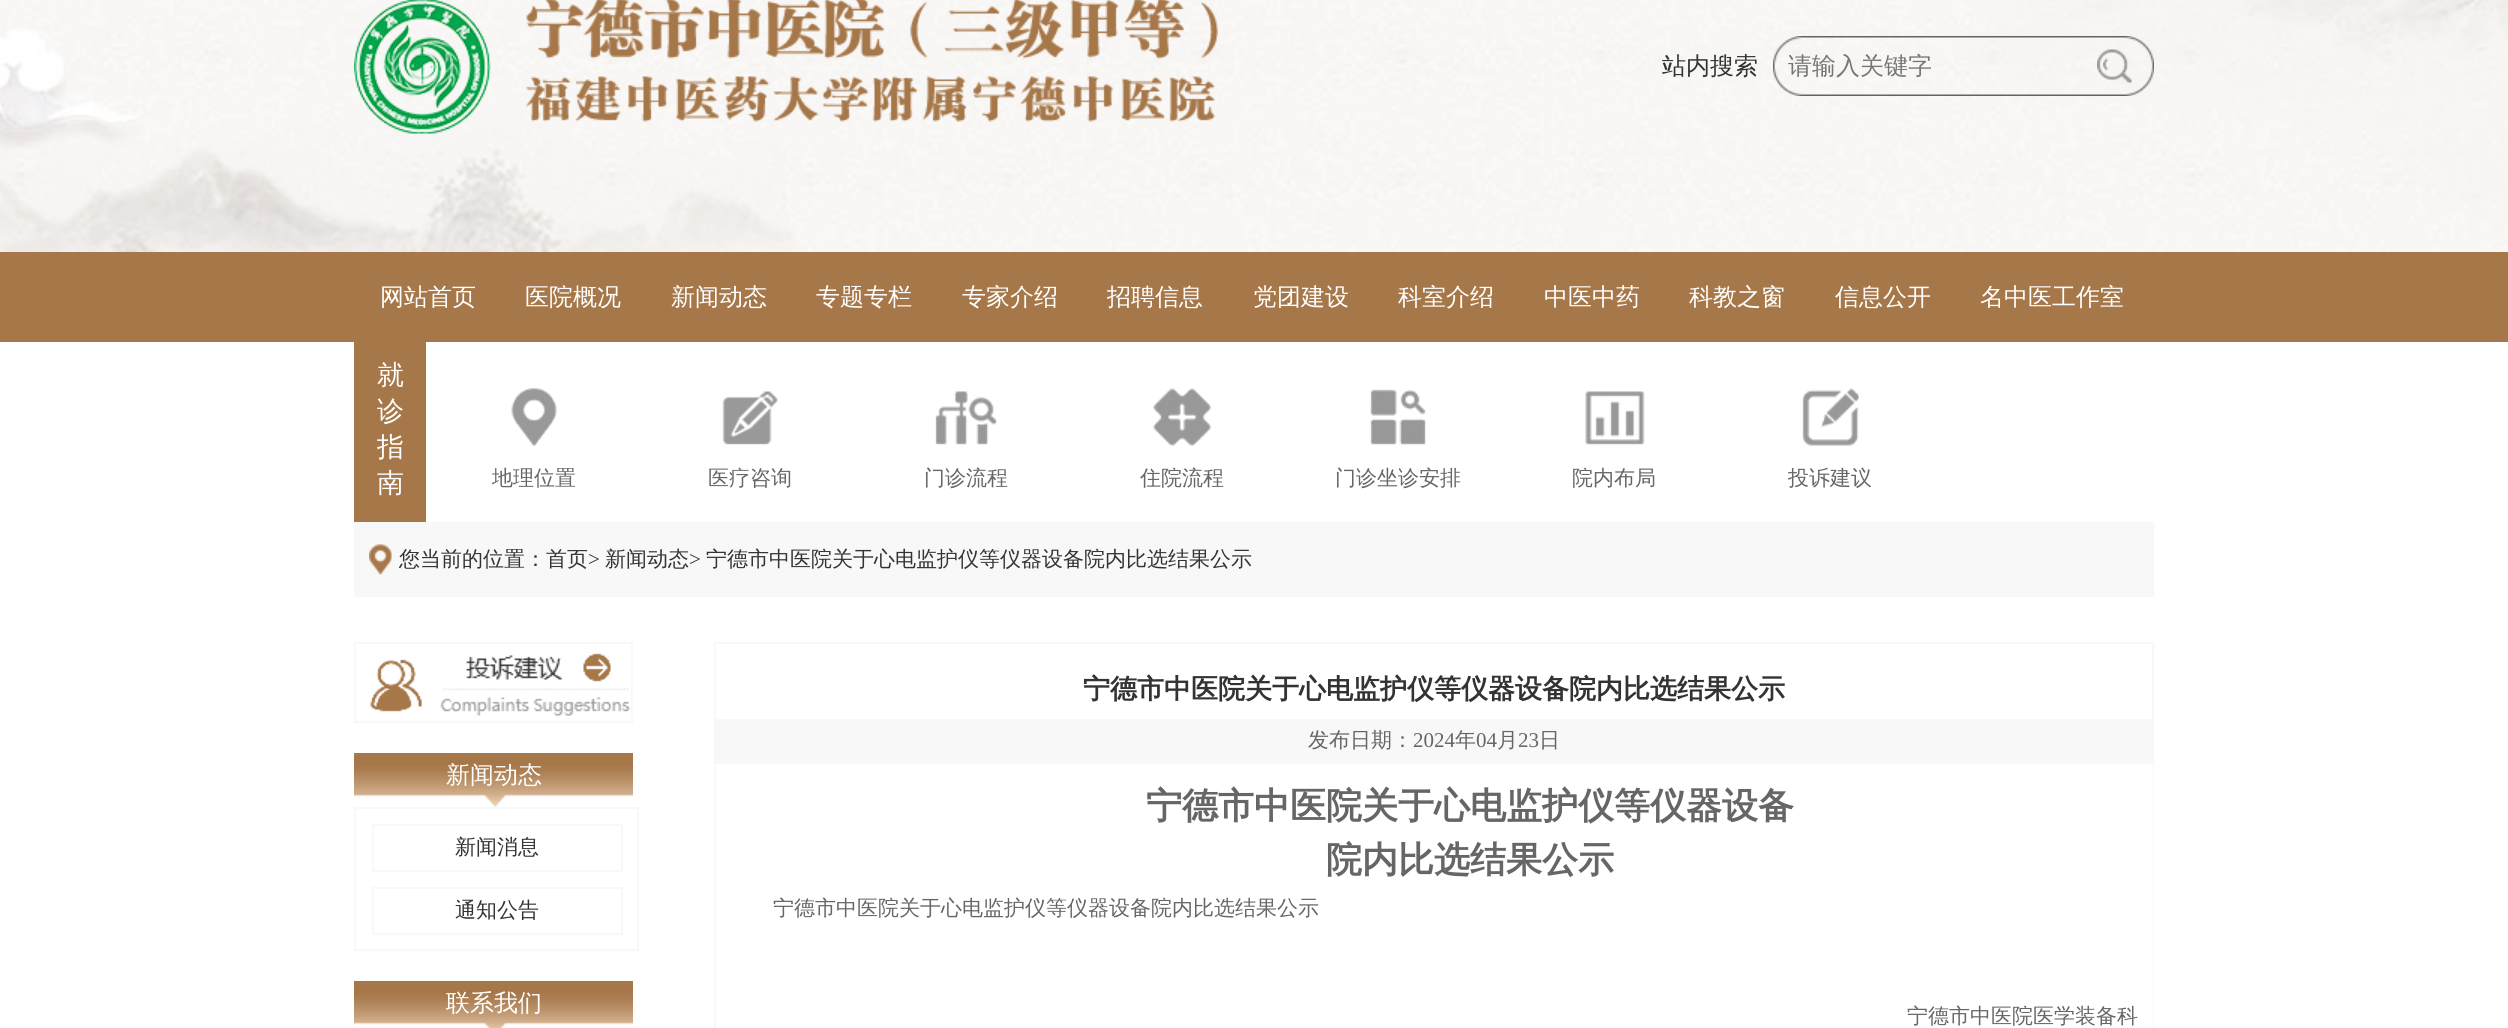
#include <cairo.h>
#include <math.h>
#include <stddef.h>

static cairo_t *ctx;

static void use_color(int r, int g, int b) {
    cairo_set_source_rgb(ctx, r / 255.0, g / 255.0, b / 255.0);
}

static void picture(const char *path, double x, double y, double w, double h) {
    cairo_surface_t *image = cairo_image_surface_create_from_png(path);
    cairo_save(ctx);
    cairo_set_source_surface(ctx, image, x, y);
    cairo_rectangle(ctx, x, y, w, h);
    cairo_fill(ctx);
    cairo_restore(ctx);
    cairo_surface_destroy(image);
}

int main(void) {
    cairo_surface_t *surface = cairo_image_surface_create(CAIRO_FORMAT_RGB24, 2508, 1028);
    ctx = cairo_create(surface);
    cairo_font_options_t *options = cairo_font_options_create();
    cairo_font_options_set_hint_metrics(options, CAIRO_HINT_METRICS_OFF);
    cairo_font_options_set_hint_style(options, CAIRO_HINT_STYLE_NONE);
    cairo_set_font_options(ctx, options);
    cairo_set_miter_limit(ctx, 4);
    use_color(255, 255, 255);
    cairo_paint(ctx);
    picture("img1.png", 0, 0, 2508, 252);
    picture("img2.png", 354, 0, 864, 134);
    cairo_select_font_face(ctx, "WenQuanYi Zen Hei Medium", CAIRO_FONT_SLANT_NORMAL, CAIRO_FONT_WEIGHT_NORMAL);
    cairo_set_font_size(ctx, 24);
    use_color(50, 51, 51);
    cairo_move_to(ctx, 1662, 74);
    cairo_show_text(ctx, "站内搜索");
    picture("img3.png", 1773, 36, 381, 60);
    use_color(117, 117, 117);
    cairo_move_to(ctx, 1788, 74);
    cairo_show_text(ctx, "请输入关键字");
    picture("img4.png", 2097, 49, 35, 34);
    use_color(166, 119, 73);
    cairo_rectangle(ctx, 0, 252, 2508, 90);
    cairo_fill(ctx);
    use_color(255, 255, 255);
    cairo_move_to(ctx, 380, 305);
    cairo_show_text(ctx, "网站首页");
    cairo_move_to(ctx, 525, 305);
    cairo_show_text(ctx, "医院概况");
    cairo_move_to(ctx, 671, 305);
    cairo_show_text(ctx, "新闻动态");
    cairo_move_to(ctx, 816, 305);
    cairo_show_text(ctx, "专题专栏");
    cairo_move_to(ctx, 962, 305);
    cairo_show_text(ctx, "专家介绍");
    cairo_move_to(ctx, 1107, 305);
    cairo_show_text(ctx, "招聘信息");
    cairo_move_to(ctx, 1253, 305);
    cairo_show_text(ctx, "党团建设");
    cairo_move_to(ctx, 1398, 305);
    cairo_show_text(ctx, "科室介绍");
    cairo_move_to(ctx, 1544, 305);
    cairo_show_text(ctx, "中医中药");
    cairo_move_to(ctx, 1689, 305);
    cairo_show_text(ctx, "科教之窗");
    cairo_move_to(ctx, 1835, 305);
    cairo_show_text(ctx, "信息公开");
    cairo_move_to(ctx, 1980, 305);
    cairo_show_text(ctx, "名中医工作室");
    use_color(166, 119, 73);
    cairo_rectangle(ctx, 354, 342, 72, 180);
    cairo_fill(ctx);
    cairo_set_font_size(ctx, 27);
    use_color(255, 255, 255);
    cairo_move_to(ctx, 377, 384);
    cairo_show_text(ctx, "就");
    cairo_move_to(ctx, 377, 420);
    cairo_show_text(ctx, "诊");
    cairo_move_to(ctx, 377, 456);
    cairo_show_text(ctx, "指");
    cairo_move_to(ctx, 377, 492);
    cairo_show_text(ctx, "南");
    picture("img5.png", 511, 388, 46, 58);
    cairo_set_font_size(ctx, 21);
    use_color(102, 102, 102);
    cairo_move_to(ctx, 492, 485);
    cairo_show_text(ctx, "地理位置");
    picture("img6.png", 722, 391, 56, 54);
    cairo_move_to(ctx, 708, 485);
    cairo_show_text(ctx, "医疗咨询");
    picture("img7.png", 935, 391, 62, 54);
    cairo_move_to(ctx, 924, 485);
    cairo_show_text(ctx, "门诊流程");
    picture("img8.png", 1153, 388, 58, 58);
    cairo_move_to(ctx, 1140, 485);
    cairo_show_text(ctx, "住院流程");
    picture("img9.png", 1370, 389, 56, 56);
    cairo_move_to(ctx, 1335, 485);
    cairo_show_text(ctx, "门诊坐诊安排");
    picture("img10.png", 1585, 391, 60, 54);
    cairo_move_to(ctx, 1572, 485);
    cairo_show_text(ctx, "院内布局");
    picture("img11.png", 1802, 388, 57, 58);
    cairo_move_to(ctx, 1788, 485);
    cairo_show_text(ctx, "投诉建议");
    use_color(248, 248, 248);
    cairo_rectangle(ctx, 354, 522, 1800, 75);
    cairo_fill(ctx);
    picture("img12.png", 369, 544, 23, 31);
    use_color(50, 51, 51);
    cairo_move_to(ctx, 399, 566);
    cairo_show_text(ctx, "您当前的位置：首页");
    cairo_select_font_face(ctx, "Liberation Serif", CAIRO_FONT_SLANT_NORMAL, CAIRO_FONT_WEIGHT_NORMAL);
    cairo_move_to(ctx, 588, 566);
    cairo_show_text(ctx, ">");
    cairo_select_font_face(ctx, "WenQuanYi Zen Hei Medium", CAIRO_FONT_SLANT_NORMAL, CAIRO_FONT_WEIGHT_NORMAL);
    cairo_move_to(ctx, 605, 566);
    cairo_show_text(ctx, "新闻动态");
    cairo_select_font_face(ctx, "Liberation Serif", CAIRO_FONT_SLANT_NORMAL, CAIRO_FONT_WEIGHT_NORMAL);
    cairo_move_to(ctx, 689, 566);
    cairo_show_text(ctx, ">");
    cairo_select_font_face(ctx, "WenQuanYi Zen Hei Medium", CAIRO_FONT_SLANT_NORMAL, CAIRO_FONT_WEIGHT_NORMAL);
    cairo_move_to(ctx, 706, 566);
    cairo_show_text(ctx, "宁德市中医院关于心电监护仪等仪器设备院内比选结果公示");
    picture("img13.png", 370, 653, 261, 63);
    cairo_rectangle(ctx, 355, 643, 277, 79);
    use_color(248, 248, 248);
    cairo_stroke(ctx);
    picture("img14.png", 354, 753, 279, 54);
    cairo_set_font_size(ctx, 24);
    use_color(255, 255, 255);
    cairo_move_to(ctx, 446, 783);
    cairo_show_text(ctx, "新闻动态");
    cairo_rectangle(ctx, 355, 808, 283, 142);
    use_color(248, 248, 248);
    cairo_stroke(ctx);
    cairo_rectangle(ctx, 373, 825, 249, 46);
    cairo_stroke(ctx);
    cairo_set_font_size(ctx, 21);
    use_color(50, 51, 51);
    cairo_move_to(ctx, 455, 854);
    cairo_show_text(ctx, "新闻消息");
    cairo_rectangle(ctx, 373, 888, 249, 46);
    use_color(248, 248, 248);
    cairo_stroke(ctx);
    use_color(50, 51, 51);
    cairo_move_to(ctx, 455, 917);
    cairo_show_text(ctx, "通知公告");
    picture("img15.png", 354, 981, 279, 47);
    cairo_set_font_size(ctx, 24);
    use_color(255, 255, 255);
    cairo_move_to(ctx, 446, 1011);
    cairo_show_text(ctx, "联系我们");
    cairo_rectangle(ctx, 715, 643, 1438, 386);
    use_color(248, 248, 248);
    cairo_stroke(ctx);
    cairo_select_font_face(ctx, "WenQuanYi Zen Hei", CAIRO_FONT_SLANT_NORMAL, CAIRO_FONT_WEIGHT_BOLD);
    cairo_set_font_size(ctx, 27);
    use_color(50, 51, 51);
    cairo_move_to(ctx, 1083, 698);
    cairo_show_text(ctx, "宁德市中医院关于心电监护仪等仪器设备院内比选结果公示");
    use_color(248, 248, 248);
    cairo_rectangle(ctx, 716, 719, 1436, 45);
    cairo_fill(ctx);
    cairo_select_font_face(ctx, "WenQuanYi Zen Hei Medium", CAIRO_FONT_SLANT_NORMAL, CAIRO_FONT_WEIGHT_NORMAL);
    cairo_set_font_size(ctx, 21);
    use_color(102, 102, 102);
    cairo_move_to(ctx, 1308, 747);
    cairo_show_text(ctx, "发布日期：");
    cairo_select_font_face(ctx, "Liberation Serif", CAIRO_FONT_SLANT_NORMAL, CAIRO_FONT_WEIGHT_NORMAL);
    cairo_move_to(ctx, 1413, 747);
    cairo_show_text(ctx, "2024");
    cairo_select_font_face(ctx, "WenQuanYi Zen Hei Medium", CAIRO_FONT_SLANT_NORMAL, CAIRO_FONT_WEIGHT_NORMAL);
    cairo_move_to(ctx, 1455, 747);
    cairo_show_text(ctx, "年");
    cairo_select_font_face(ctx, "Liberation Serif", CAIRO_FONT_SLANT_NORMAL, CAIRO_FONT_WEIGHT_NORMAL);
    cairo_move_to(ctx, 1476, 747);
    cairo_show_text(ctx, "04");
    cairo_select_font_face(ctx, "WenQuanYi Zen Hei Medium", CAIRO_FONT_SLANT_NORMAL, CAIRO_FONT_WEIGHT_NORMAL);
    cairo_move_to(ctx, 1497, 747);
    cairo_show_text(ctx, "月");
    cairo_select_font_face(ctx, "Liberation Serif", CAIRO_FONT_SLANT_NORMAL, CAIRO_FONT_WEIGHT_NORMAL);
    cairo_move_to(ctx, 1518, 747);
    cairo_show_text(ctx, "23");
    cairo_select_font_face(ctx, "WenQuanYi Zen Hei Medium", CAIRO_FONT_SLANT_NORMAL, CAIRO_FONT_WEIGHT_NORMAL);
    cairo_move_to(ctx, 1539, 747);
    cairo_show_text(ctx, "日");
    use_color(255, 255, 255);
    cairo_rectangle(ctx, 2152, 764, 1, 264);
    cairo_fill(ctx);
    cairo_select_font_face(ctx, "WenQuanYi Zen Hei", CAIRO_FONT_SLANT_NORMAL, CAIRO_FONT_WEIGHT_BOLD);
    cairo_set_font_size(ctx, 36);
    use_color(102, 102, 102);
    cairo_move_to(ctx, 1146, 818);
    cairo_show_text(ctx, "宁德市中医院关于心电监护仪等仪器设备");
    cairo_move_to(ctx, 1326, 872);
    cairo_show_text(ctx, "院内比选结果公示");
    cairo_select_font_face(ctx, "WenQuanYi Zen Hei Medium", CAIRO_FONT_SLANT_NORMAL, CAIRO_FONT_WEIGHT_NORMAL);
    cairo_set_font_size(ctx, 21);
    cairo_move_to(ctx, 773, 915);
    cairo_show_text(ctx, "宁德市中医院关于心电监护仪等仪器设备院内比选结果公示");
    cairo_move_to(ctx, 1907, 1023);
    cairo_show_text(ctx, "宁德市中医院医学装备科");
    cairo_surface_write_to_png(surface, "result.png");
    cairo_font_options_destroy(options);
    cairo_destroy(ctx);
    cairo_surface_destroy(surface);
    return 0;
}
